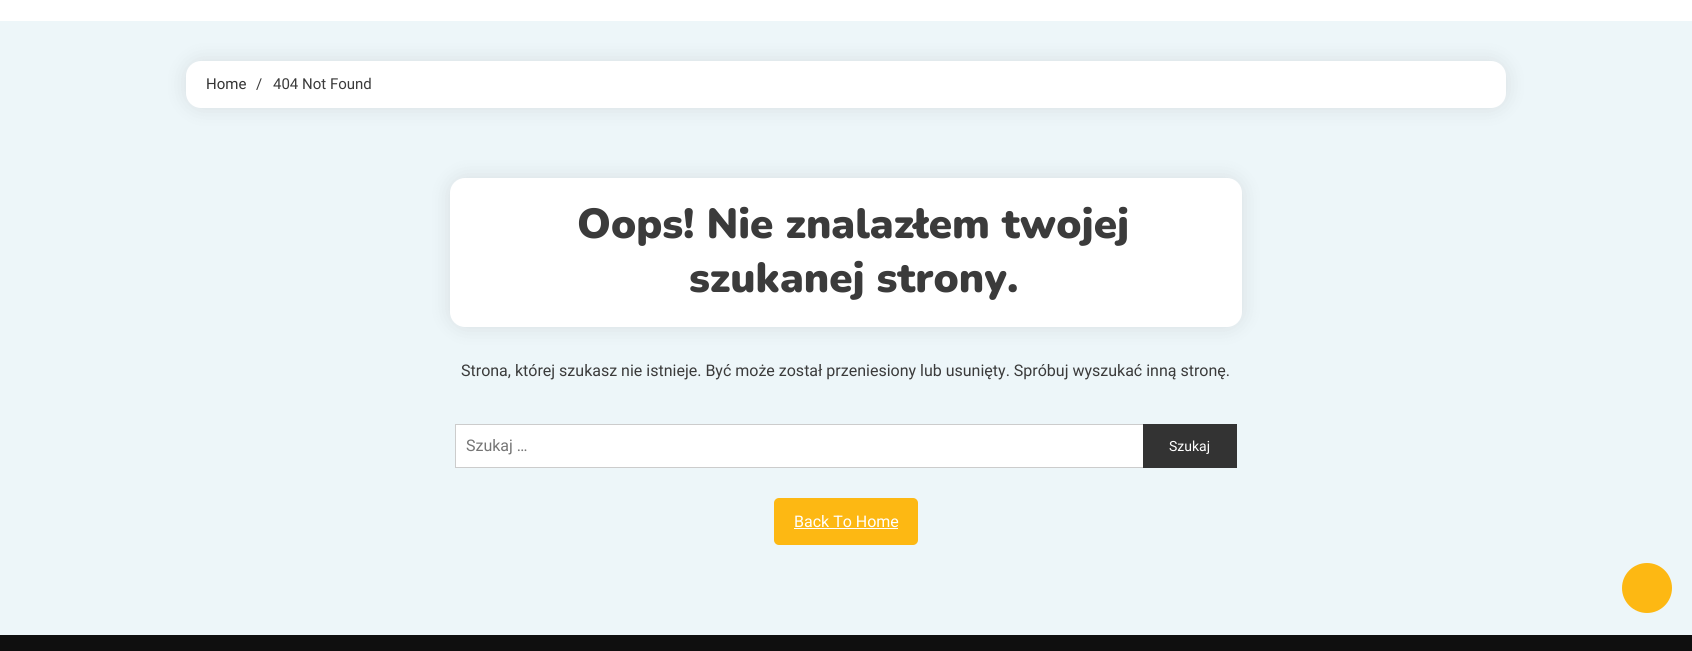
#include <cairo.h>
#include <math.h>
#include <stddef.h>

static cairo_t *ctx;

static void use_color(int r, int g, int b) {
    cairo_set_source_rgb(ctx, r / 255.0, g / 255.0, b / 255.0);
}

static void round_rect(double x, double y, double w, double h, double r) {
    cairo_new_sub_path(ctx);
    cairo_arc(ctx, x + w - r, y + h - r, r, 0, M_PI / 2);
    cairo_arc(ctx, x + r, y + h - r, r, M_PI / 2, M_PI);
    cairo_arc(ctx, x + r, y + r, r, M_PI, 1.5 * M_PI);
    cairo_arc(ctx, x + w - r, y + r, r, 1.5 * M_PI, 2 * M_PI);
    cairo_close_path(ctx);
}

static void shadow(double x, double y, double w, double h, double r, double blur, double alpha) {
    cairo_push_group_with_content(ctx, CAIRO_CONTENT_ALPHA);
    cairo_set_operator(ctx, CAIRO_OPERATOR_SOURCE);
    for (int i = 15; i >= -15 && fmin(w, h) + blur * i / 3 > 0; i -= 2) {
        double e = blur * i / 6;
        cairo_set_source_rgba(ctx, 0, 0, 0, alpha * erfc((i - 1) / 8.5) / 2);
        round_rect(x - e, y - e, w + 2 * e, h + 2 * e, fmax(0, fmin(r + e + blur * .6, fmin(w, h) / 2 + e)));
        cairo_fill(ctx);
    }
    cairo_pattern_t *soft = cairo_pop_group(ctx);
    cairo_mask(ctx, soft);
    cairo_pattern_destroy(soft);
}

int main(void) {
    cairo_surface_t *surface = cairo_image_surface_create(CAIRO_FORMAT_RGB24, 1692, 651);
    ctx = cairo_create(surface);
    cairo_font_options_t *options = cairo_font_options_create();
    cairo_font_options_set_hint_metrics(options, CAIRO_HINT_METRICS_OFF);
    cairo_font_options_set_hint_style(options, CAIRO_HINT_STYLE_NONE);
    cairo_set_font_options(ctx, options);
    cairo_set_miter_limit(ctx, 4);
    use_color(237, 246, 249);
    cairo_paint(ctx);
    use_color(255, 255, 255);
    cairo_rectangle(ctx, 0, 0, 1692, 21);
    cairo_fill(ctx);
    use_color(0, 0, 0);
    shadow(186, 61, 1320, 47, 15, 10, 0.1);
    use_color(255, 255, 255);
    round_rect(186, 61, 1320, 47, 15);
    cairo_fill(ctx);
    cairo_select_font_face(ctx, "Roboto", CAIRO_FONT_SLANT_NORMAL, CAIRO_FONT_WEIGHT_NORMAL);
    cairo_set_font_size(ctx, 15);
    use_color(51, 51, 51);
    cairo_move_to(ctx, 206, 89);
    cairo_show_text(ctx, "Home");
    use_color(59, 59, 59);
    cairo_move_to(ctx, 256, 89);
    cairo_show_text(ctx, "/");
    cairo_move_to(ctx, 273, 89);
    cairo_show_text(ctx, "404 Not Found");
    use_color(0, 0, 0);
    shadow(450, 178, 792, 149, 15, 10, 0.1);
    use_color(255, 255, 255);
    round_rect(450, 178, 792, 149, 15);
    cairo_fill(ctx);
    cairo_select_font_face(ctx, "Nunito Black", CAIRO_FONT_SLANT_NORMAL, CAIRO_FONT_WEIGHT_NORMAL);
    cairo_set_font_size(ctx, 42);
    use_color(59, 59, 59);
    cairo_move_to(ctx, 577, 238);
    cairo_show_text(ctx, "Oops! Nie znalazłem twojej");
    cairo_move_to(ctx, 689, 292);
    cairo_show_text(ctx, "szukanej strony.");
    cairo_select_font_face(ctx, "Roboto", CAIRO_FONT_SLANT_NORMAL, CAIRO_FONT_WEIGHT_NORMAL);
    cairo_set_font_size(ctx, 16);
    cairo_move_to(ctx, 461, 376);
    cairo_show_text(ctx, "Strona, której szukasz nie istnieje. Być może został przeniesiony lub usunięty. Spróbuj wyszukać inną stronę.");
    use_color(255, 255, 255);
    cairo_rectangle(ctx, 456, 425, 687, 42);
    cairo_fill(ctx);
    cairo_rectangle(ctx, 455.5, 424.5, 689, 43);
    use_color(204, 204, 204);
    cairo_set_line_width(ctx, 1);
    cairo_stroke(ctx);
    use_color(117, 117, 117);
    cairo_move_to(ctx, 466, 451);
    cairo_show_text(ctx, "Szukaj …");
    use_color(51, 51, 51);
    cairo_rectangle(ctx, 1143, 424, 94, 44);
    cairo_fill(ctx);
    cairo_set_font_size(ctx, 14);
    use_color(255, 255, 255);
    cairo_move_to(ctx, 1169, 451);
    cairo_show_text(ctx, "Szukaj");
    use_color(253, 184, 19);
    round_rect(774, 498, 144, 47, 5);
    cairo_fill(ctx);
    cairo_set_font_size(ctx, 16);
    use_color(255, 255, 255);
    cairo_move_to(ctx, 794, 527);
    cairo_show_text(ctx, "Back To Home");
    cairo_rectangle(ctx, 794, 528, 104, 1);
    cairo_fill(ctx);
    use_color(15, 15, 15);
    cairo_rectangle(ctx, 0, 635, 1692, 16);
    cairo_fill(ctx);
    use_color(253, 184, 19);
    cairo_arc(ctx, 1647, 588, 25, 0, 2 * M_PI);
    cairo_fill(ctx);
    cairo_surface_write_to_png(surface, "result.png");
    cairo_font_options_destroy(options);
    cairo_destroy(ctx);
    cairo_surface_destroy(surface);
    return 0;
}
